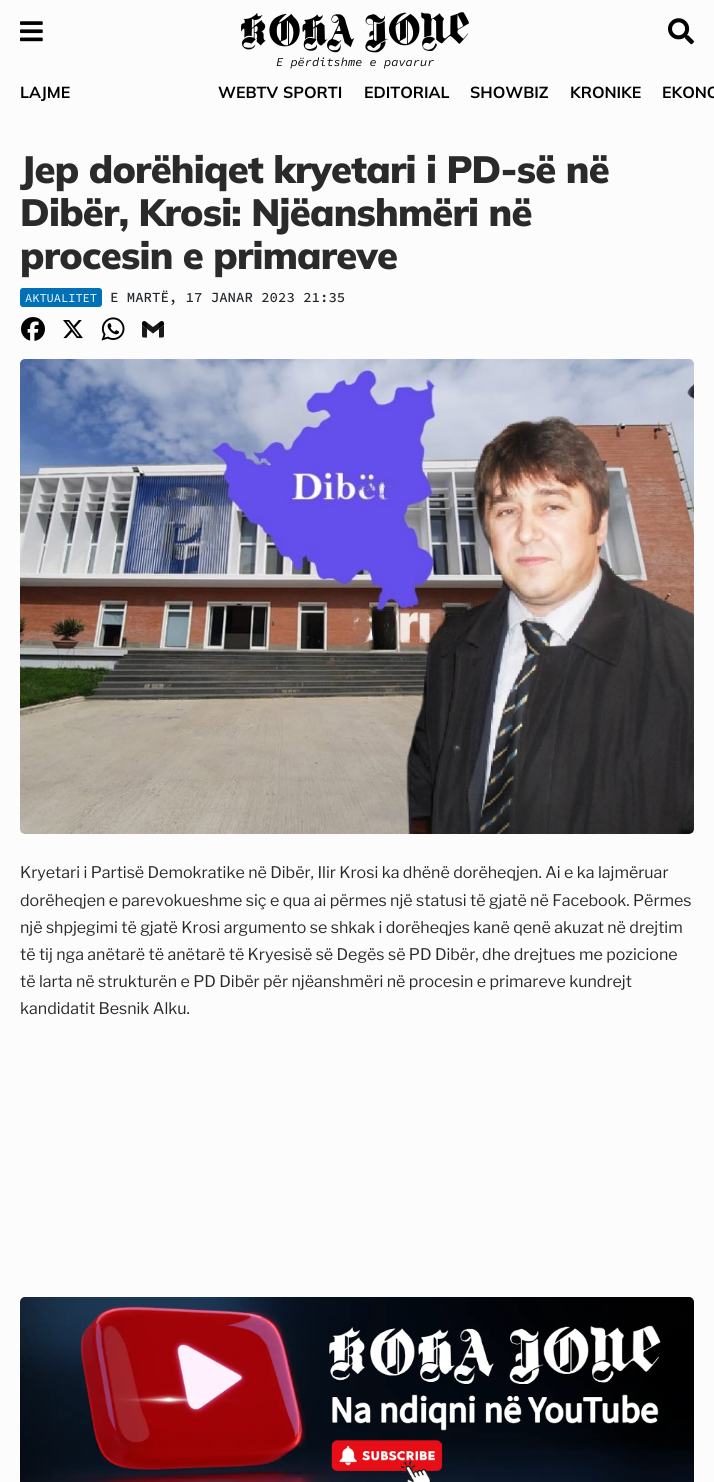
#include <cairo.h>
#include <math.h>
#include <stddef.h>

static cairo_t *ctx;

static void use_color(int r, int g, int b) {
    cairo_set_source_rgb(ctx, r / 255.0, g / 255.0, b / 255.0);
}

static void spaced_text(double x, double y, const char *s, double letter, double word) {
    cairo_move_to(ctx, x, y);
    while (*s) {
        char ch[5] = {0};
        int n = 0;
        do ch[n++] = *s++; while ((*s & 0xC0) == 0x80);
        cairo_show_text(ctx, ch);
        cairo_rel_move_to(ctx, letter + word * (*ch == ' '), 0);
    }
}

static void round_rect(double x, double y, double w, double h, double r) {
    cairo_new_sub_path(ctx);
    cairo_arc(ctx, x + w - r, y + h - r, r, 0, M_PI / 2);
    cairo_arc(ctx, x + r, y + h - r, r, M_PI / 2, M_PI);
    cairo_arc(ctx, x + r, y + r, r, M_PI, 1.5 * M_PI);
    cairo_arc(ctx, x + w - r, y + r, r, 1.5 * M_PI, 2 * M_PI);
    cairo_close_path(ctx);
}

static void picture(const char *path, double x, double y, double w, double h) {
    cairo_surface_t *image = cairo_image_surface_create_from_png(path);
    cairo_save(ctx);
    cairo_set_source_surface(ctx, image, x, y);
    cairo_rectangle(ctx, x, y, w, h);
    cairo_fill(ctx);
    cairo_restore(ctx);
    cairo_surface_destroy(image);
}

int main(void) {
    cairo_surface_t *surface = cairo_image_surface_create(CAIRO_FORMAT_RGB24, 714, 1482);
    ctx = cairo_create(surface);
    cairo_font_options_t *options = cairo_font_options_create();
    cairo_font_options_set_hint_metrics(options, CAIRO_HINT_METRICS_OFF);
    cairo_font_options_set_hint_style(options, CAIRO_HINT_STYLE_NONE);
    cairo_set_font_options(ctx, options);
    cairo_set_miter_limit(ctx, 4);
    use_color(252, 252, 252);
    cairo_paint(ctx);
    picture("img1.png", 20, 21, 23, 21);
    picture("img2.png", 668, 18, 26, 27);
    picture("img3.png", 241, 12, 228, 41);
    cairo_select_font_face(ctx, "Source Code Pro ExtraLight", CAIRO_FONT_SLANT_ITALIC, CAIRO_FONT_WEIGHT_NORMAL);
    cairo_set_font_size(ctx, 12);
    use_color(0, 0, 0);
    cairo_move_to(ctx, 276, 66);
    cairo_show_text(ctx, "E përditshme e pavarur");
    cairo_select_font_face(ctx, "Mulish", CAIRO_FONT_SLANT_NORMAL, CAIRO_FONT_WEIGHT_BOLD);
    cairo_set_font_size(ctx, 16);
    cairo_move_to(ctx, 20, 98);
    cairo_show_text(ctx, "LAJME");
    cairo_move_to(ctx, 218, 98);
    cairo_show_text(ctx, "WEBTV");
    cairo_move_to(ctx, 283, 98);
    cairo_show_text(ctx, "SPORTI");
    cairo_move_to(ctx, 364, 98);
    cairo_show_text(ctx, "EDITORIAL");
    cairo_move_to(ctx, 470, 98);
    cairo_show_text(ctx, "SHOWBIZ");
    cairo_move_to(ctx, 570, 98);
    cairo_show_text(ctx, "KRONIKE");
    cairo_move_to(ctx, 662, 98);
    cairo_show_text(ctx, "EKONO");
    cairo_select_font_face(ctx, "Mulish Black", CAIRO_FONT_SLANT_NORMAL, CAIRO_FONT_WEIGHT_NORMAL);
    cairo_set_font_size(ctx, 38);
    use_color(42, 42, 42);
    spaced_text(20, 183, "Jep dorëhiqet kryetari i PD-së në", -0.75, 0);
    spaced_text(20, 226, "Dibër, Krosi: Njëanshmëri në", -0.75, 0);
    spaced_text(20, 269, "procesin e primareve", -0.75, 0);
    use_color(0, 112, 183);
    round_rect(20.5, 288.5, 81, 18, 2.5);
    cairo_fill_preserve(ctx);
    cairo_set_line_width(ctx, 1);
    cairo_stroke(ctx);
    cairo_select_font_face(ctx, "Source Code Pro ExtraLight", CAIRO_FONT_SLANT_NORMAL, CAIRO_FONT_WEIGHT_NORMAL);
    cairo_set_font_size(ctx, 12);
    use_color(252, 252, 252);
    cairo_move_to(ctx, 25, 302);
    cairo_show_text(ctx, "AKTUALITET");
    cairo_select_font_face(ctx, "Source Code Pro ExtraLight Medium", CAIRO_FONT_SLANT_NORMAL, CAIRO_FONT_WEIGHT_NORMAL);
    cairo_set_font_size(ctx, 14);
    use_color(33, 37, 41);
    cairo_move_to(ctx, 110, 302);
    cairo_show_text(ctx, "E MARTË, 17 JANAR 2023 21:35");
    picture("img4.png", 21, 317, 24, 24);
    picture("img5.png", 63, 320, 20, 19);
    picture("img6.png", 101, 317, 24, 24);
    picture("img7.png", 142, 321, 22, 17);
    picture("img8.png", 20, 359, 674, 475);
    cairo_select_font_face(ctx, "Libre Franklin", CAIRO_FONT_SLANT_NORMAL, CAIRO_FONT_WEIGHT_NORMAL);
    cairo_set_font_size(ctx, 16);
    use_color(42, 42, 42);
    cairo_move_to(ctx, 20, 878);
    cairo_show_text(ctx, "Kryetari i Partisë Demokratike në Dibër, Ilir Krosi ka dhënë dorëheqjen. Ai e ka lajmëruar");
    cairo_move_to(ctx, 20, 906);
    cairo_show_text(ctx, "dorëheqjen e parevokueshme siç e qua ai përmes një statusi të gjatë në Facebook. Përmes");
    cairo_move_to(ctx, 20, 933);
    cairo_show_text(ctx, "një shpjegimi të gjatë Krosi argumento se shkak i dorëheqjes kanë qenë akuzat në drejtim");
    cairo_move_to(ctx, 20, 960);
    cairo_show_text(ctx, "të tij nga anëtarë të anëtarë të Kryesisë së Degës së PD Dibër, dhe drejtues me pozicione");
    cairo_move_to(ctx, 20, 987);
    cairo_show_text(ctx, "të larta në strukturën e PD Dibër për njëanshmëri në procesin e primareve kundrejt");
    cairo_move_to(ctx, 20, 1014);
    cairo_show_text(ctx, "kandidatit Besnik Alku.");
    picture("img9.png", 20, 1297, 674, 185);
    cairo_surface_write_to_png(surface, "result.png");
    cairo_font_options_destroy(options);
    cairo_destroy(ctx);
    cairo_surface_destroy(surface);
    return 0;
}
